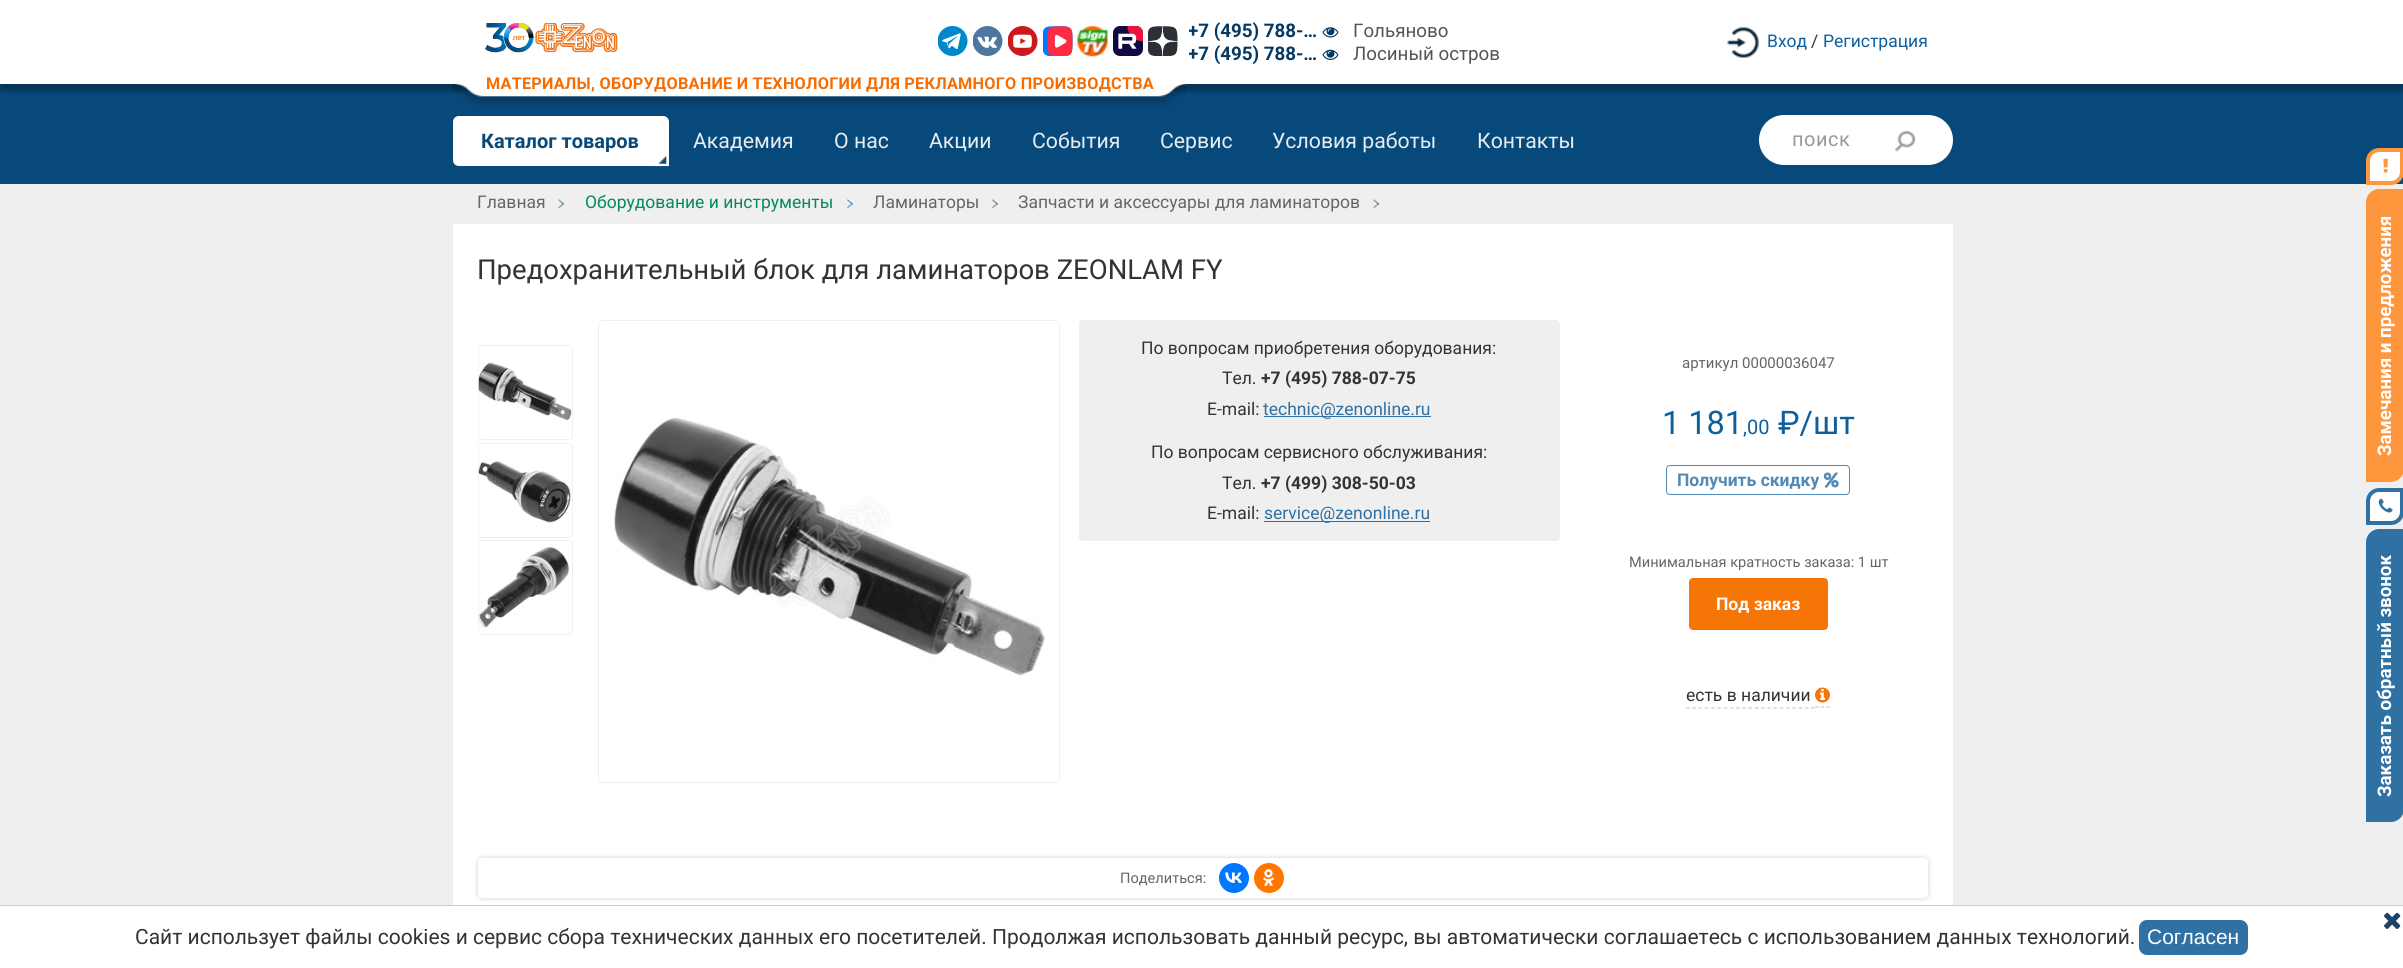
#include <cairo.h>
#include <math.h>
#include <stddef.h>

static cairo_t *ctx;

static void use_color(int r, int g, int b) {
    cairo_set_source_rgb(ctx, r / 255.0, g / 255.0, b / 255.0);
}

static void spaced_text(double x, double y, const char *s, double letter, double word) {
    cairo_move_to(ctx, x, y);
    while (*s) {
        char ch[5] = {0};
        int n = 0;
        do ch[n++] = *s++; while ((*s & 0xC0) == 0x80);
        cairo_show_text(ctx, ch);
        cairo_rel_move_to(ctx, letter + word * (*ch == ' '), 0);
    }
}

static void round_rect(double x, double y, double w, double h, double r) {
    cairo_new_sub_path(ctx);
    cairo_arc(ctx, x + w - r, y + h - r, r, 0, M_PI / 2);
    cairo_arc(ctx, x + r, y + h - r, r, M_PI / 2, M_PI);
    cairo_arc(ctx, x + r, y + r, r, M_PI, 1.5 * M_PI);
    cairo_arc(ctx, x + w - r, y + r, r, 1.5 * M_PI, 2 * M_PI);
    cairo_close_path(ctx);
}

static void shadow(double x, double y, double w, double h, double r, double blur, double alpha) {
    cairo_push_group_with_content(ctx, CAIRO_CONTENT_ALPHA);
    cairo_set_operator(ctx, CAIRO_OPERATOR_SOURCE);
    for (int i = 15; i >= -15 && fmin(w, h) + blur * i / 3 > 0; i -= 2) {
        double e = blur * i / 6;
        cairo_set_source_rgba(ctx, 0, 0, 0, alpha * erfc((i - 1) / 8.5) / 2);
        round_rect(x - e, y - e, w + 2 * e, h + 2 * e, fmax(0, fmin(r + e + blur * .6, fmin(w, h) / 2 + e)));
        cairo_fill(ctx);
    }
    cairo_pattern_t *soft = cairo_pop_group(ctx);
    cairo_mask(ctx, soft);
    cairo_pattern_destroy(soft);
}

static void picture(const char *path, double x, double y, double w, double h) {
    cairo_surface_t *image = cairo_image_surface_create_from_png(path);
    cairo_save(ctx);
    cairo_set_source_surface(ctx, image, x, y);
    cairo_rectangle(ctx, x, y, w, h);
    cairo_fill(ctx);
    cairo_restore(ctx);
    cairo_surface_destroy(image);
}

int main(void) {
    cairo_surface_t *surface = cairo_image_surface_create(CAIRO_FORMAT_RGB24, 2403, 968);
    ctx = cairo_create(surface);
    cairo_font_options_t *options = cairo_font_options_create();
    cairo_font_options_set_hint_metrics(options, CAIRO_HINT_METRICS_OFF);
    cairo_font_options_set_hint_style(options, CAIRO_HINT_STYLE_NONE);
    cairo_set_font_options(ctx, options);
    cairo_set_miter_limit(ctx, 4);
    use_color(8, 73, 123);
    cairo_paint(ctx);
    use_color(0, 0, 0);
    shadow(0, 8, 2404, 83, 0, 2.5, 0.3);
    use_color(255, 255, 255);
    cairo_rectangle(ctx, 0, 0, 2403, 84);
    cairo_fill(ctx);
    cairo_save(ctx);
    cairo_rectangle(ctx, 1189, 6, 331, 69);
    cairo_clip(ctx);
    cairo_select_font_face(ctx, "Roboto", CAIRO_FONT_SLANT_NORMAL, CAIRO_FONT_WEIGHT_BOLD);
    cairo_set_font_size(ctx, 18.75);
    use_color(5, 57, 97);
    cairo_move_to(ctx, 1188, 37);
    cairo_show_text(ctx, "+7 (495) 788-…");
    cairo_restore(ctx);
    picture("img1.png", 1322, 27, 17, 11);
    cairo_select_font_face(ctx, "Roboto", CAIRO_FONT_SLANT_NORMAL, CAIRO_FONT_WEIGHT_NORMAL);
    cairo_set_font_size(ctx, 18.75);
    use_color(85, 85, 85);
    cairo_move_to(ctx, 1353, 37);
    cairo_show_text(ctx, "Гольяново");
    cairo_save(ctx);
    cairo_rectangle(ctx, 1189, 6, 331, 69);
    cairo_clip(ctx);
    cairo_select_font_face(ctx, "Roboto", CAIRO_FONT_SLANT_NORMAL, CAIRO_FONT_WEIGHT_BOLD);
    use_color(5, 57, 97);
    cairo_move_to(ctx, 1188, 60);
    cairo_show_text(ctx, "+7 (495) 788-…");
    cairo_restore(ctx);
    picture("img2.png", 1322, 49, 17, 11);
    cairo_move_to(ctx, 1353, 60);
    cairo_show_text(ctx, "Лосиный остров");
    picture("img3.png", 1727, 27, 32, 31);
    cairo_set_font_size(ctx, 17.5);
    use_color(14, 95, 158);
    cairo_move_to(ctx, 1767, 47);
    cairo_show_text(ctx, "Вход");
    use_color(51, 51, 51);
    cairo_move_to(ctx, 1811, 47);
    cairo_show_text(ctx, "/");
    use_color(14, 95, 158);
    cairo_move_to(ctx, 1823, 47);
    cairo_show_text(ctx, "Регистрация");
    picture("img4.png", 485, 23, 133, 30);
    picture("img5.png", 938, 26, 30, 30);
    picture("img6.png", 973, 26, 30, 30);
    picture("img7.png", 1008, 26, 30, 30);
    picture("img8.png", 1043, 26, 30, 30);
    picture("img9.png", 1077, 26, 31, 31);
    picture("img10.png", 1113, 26, 30, 30);
    picture("img11.png", 1148, 26, 30, 30);
    picture("img12.png", 452, 83, 735, 24);
    cairo_select_font_face(ctx, "Roboto", CAIRO_FONT_SLANT_NORMAL, CAIRO_FONT_WEIGHT_BOLD);
    cairo_set_font_size(ctx, 16.25);
    use_color(246, 108, 0);
    spaced_text(486, 89, "МАТЕРИАЛЫ, ОБОРУДОВАНИЕ И ТЕХНОЛОГИИ ДЛЯ РЕКЛАМНОГО ПРОИЗВОДСТВА", 0.25, 0);
    use_color(255, 255, 255);
    cairo_new_path(ctx);
    cairo_move_to(ctx, 459, 116);
    cairo_line_to(ctx, 663, 116);
    cairo_curve_to(ctx, 666.5, 116, 669, 118.5, 669, 122);
    cairo_line_to(ctx, 669, 166);
    cairo_line_to(ctx, 459, 166);
    cairo_curve_to(ctx, 455.5, 166, 453, 163.5, 453, 160);
    cairo_line_to(ctx, 453, 122);
    cairo_curve_to(ctx, 453, 118.5, 455.5, 116, 459, 116);
    cairo_close_path(ctx);
    cairo_fill(ctx);
    cairo_set_font_size(ctx, 20);
    use_color(8, 73, 123);
    cairo_move_to(ctx, 481, 148);
    cairo_show_text(ctx, "Каталог товаров");
    picture("img13.png", 653, 156, 16, 11);
    cairo_select_font_face(ctx, "Roboto", CAIRO_FONT_SLANT_NORMAL, CAIRO_FONT_WEIGHT_NORMAL);
    cairo_set_font_size(ctx, 21.25);
    use_color(230, 237, 242);
    cairo_move_to(ctx, 693, 148);
    cairo_show_text(ctx, "Академия");
    cairo_move_to(ctx, 834, 148);
    cairo_show_text(ctx, "О нас");
    cairo_move_to(ctx, 929, 148);
    cairo_show_text(ctx, "Акции");
    cairo_move_to(ctx, 1032, 148);
    cairo_show_text(ctx, "События");
    cairo_move_to(ctx, 1160, 148);
    cairo_show_text(ctx, "Сервис");
    cairo_move_to(ctx, 1272, 148);
    cairo_show_text(ctx, "Условия работы");
    cairo_move_to(ctx, 1477, 148);
    cairo_show_text(ctx, "Контакты");
    use_color(255, 255, 255);
    round_rect(1759, 115, 194, 50, 25);
    cairo_fill(ctx);
    cairo_set_font_size(ctx, 20);
    use_color(153, 153, 153);
    spaced_text(1792, 146, "поиск", 0.5, 0);
    picture("img14.png", 1895, 131, 20, 21);
    use_color(239, 239, 239);
    cairo_rectangle(ctx, 0, 184, 2403, 721);
    cairo_fill(ctx);
    cairo_set_font_size(ctx, 17.5);
    use_color(102, 102, 102);
    cairo_move_to(ctx, 477, 208);
    cairo_show_text(ctx, "Главная");
    picture("img15.png", 558, 199, 6, 10);
    use_color(4, 137, 100);
    cairo_move_to(ctx, 585, 208);
    cairo_show_text(ctx, "Оборудование и инструменты");
    picture("img16.png", 847, 199, 6, 10);
    use_color(102, 102, 102);
    cairo_move_to(ctx, 873, 208);
    cairo_show_text(ctx, "Ламинаторы");
    picture("img16.png", 992, 199, 6, 10);
    cairo_move_to(ctx, 1018, 208);
    cairo_show_text(ctx, "Запчасти и аксессуары для ламинаторов");
    picture("img15.png", 1373, 199, 6, 10);
    use_color(255, 255, 255);
    cairo_rectangle(ctx, 453, 224, 1500, 681);
    cairo_fill(ctx);
    cairo_set_font_size(ctx, 27.5);
    use_color(51, 51, 51);
    cairo_move_to(ctx, 477, 279);
    cairo_show_text(ctx, "Предохранительный блок для ламинаторов ZEONLAM FY");
    round_rect(478.5, 345.5, 94, 94, 3.5);
    use_color(239, 239, 239);
    cairo_set_line_width(ctx, 1);
    cairo_stroke(ctx);
    picture("img17.png", 478, 346, 94, 93);
    round_rect(478.5, 443.5, 94, 94, 3.5);
    cairo_stroke(ctx);
    picture("img18.png", 478, 443, 93, 93);
    round_rect(478.5, 540.5, 94, 94, 3.5);
    cairo_stroke(ctx);
    picture("img19.png", 478, 541, 92, 93);
    round_rect(598.5, 320.5, 461, 462, 3.5);
    cairo_stroke(ctx);
    use_color(255, 255, 255);
    cairo_rectangle(ctx, 599, 321, 460, 460);
    cairo_fill(ctx);
    picture("img20.png", 613, 417, 432, 259);
    use_color(239, 239, 239);
    round_rect(1079, 320, 481, 221, 4);
    cairo_fill(ctx);
    cairo_set_font_size(ctx, 17.5);
    use_color(51, 51, 51);
    cairo_move_to(ctx, 1141, 354);
    cairo_show_text(ctx, "По вопросам приобретения оборудования:");
    cairo_move_to(ctx, 1222, 384);
    cairo_show_text(ctx, "Тел.");
    cairo_select_font_face(ctx, "Roboto", CAIRO_FONT_SLANT_NORMAL, CAIRO_FONT_WEIGHT_BOLD);
    cairo_move_to(ctx, 1261, 384);
    cairo_show_text(ctx, "+7 (495) 788-07-75");
    cairo_select_font_face(ctx, "Roboto", CAIRO_FONT_SLANT_NORMAL, CAIRO_FONT_WEIGHT_NORMAL);
    cairo_move_to(ctx, 1207, 415);
    cairo_show_text(ctx, "E-mail:");
    use_color(47, 113, 163);
    cairo_rectangle(ctx, 1264, 416, 167, 1);
    cairo_fill(ctx);
    cairo_move_to(ctx, 1263, 415);
    cairo_show_text(ctx, "technic@zenonline.ru");
    use_color(51, 51, 51);
    cairo_move_to(ctx, 1151, 458);
    cairo_show_text(ctx, "По вопросам сервисного обслуживания:");
    cairo_move_to(ctx, 1222, 489);
    cairo_show_text(ctx, "Тел.");
    cairo_select_font_face(ctx, "Roboto", CAIRO_FONT_SLANT_NORMAL, CAIRO_FONT_WEIGHT_BOLD);
    cairo_move_to(ctx, 1261, 489);
    cairo_show_text(ctx, "+7 (499) 308-50-03");
    cairo_select_font_face(ctx, "Roboto", CAIRO_FONT_SLANT_NORMAL, CAIRO_FONT_WEIGHT_NORMAL);
    cairo_move_to(ctx, 1207, 519);
    cairo_show_text(ctx, "E-mail:");
    use_color(47, 113, 163);
    cairo_rectangle(ctx, 1264, 521, 166, 1);
    cairo_fill(ctx);
    cairo_move_to(ctx, 1264, 519);
    cairo_show_text(ctx, "service@zenonline.ru");
    cairo_set_font_size(ctx, 15);
    use_color(102, 102, 102);
    cairo_move_to(ctx, 1682, 368);
    cairo_show_text(ctx, "артикул 00000036047");
    cairo_set_font_size(ctx, 32.5);
    use_color(14, 95, 158);
    cairo_move_to(ctx, 1662, 434);
    cairo_show_text(ctx, "1 181");
    cairo_set_font_size(ctx, 20);
    cairo_move_to(ctx, 1743, 434);
    cairo_show_text(ctx, ",00");
    cairo_set_font_size(ctx, 32.5);
    cairo_move_to(ctx, 1778, 434);
    cairo_show_text(ctx, "₽/шт");
    round_rect(1666.5, 465.5, 183, 29, 3.5);
    use_color(81, 138, 183);
    cairo_stroke(ctx);
    cairo_select_font_face(ctx, "Roboto", CAIRO_FONT_SLANT_NORMAL, CAIRO_FONT_WEIGHT_BOLD);
    cairo_set_font_size(ctx, 17.5);
    cairo_move_to(ctx, 1677, 486);
    cairo_show_text(ctx, "Получить скидку");
    picture("img21.png", 1823, 472, 16, 16);
    cairo_select_font_face(ctx, "Roboto", CAIRO_FONT_SLANT_NORMAL, CAIRO_FONT_WEIGHT_NORMAL);
    cairo_set_font_size(ctx, 14.6);
    use_color(102, 102, 102);
    cairo_move_to(ctx, 1629, 567);
    cairo_show_text(ctx, "Минимальная кратность заказа: 1 шт");
    use_color(245, 117, 7);
    round_rect(1690.5, 579.5, 136, 49, 2.5);
    cairo_fill_preserve(ctx);
    cairo_set_line_width(ctx, 3);
    cairo_stroke(ctx);
    cairo_select_font_face(ctx, "Roboto", CAIRO_FONT_SLANT_NORMAL, CAIRO_FONT_WEIGHT_BOLD);
    cairo_set_font_size(ctx, 17.5);
    use_color(255, 255, 255);
    cairo_move_to(ctx, 1716, 610);
    cairo_show_text(ctx, "Под заказ");
    cairo_new_path(ctx);
    cairo_move_to(ctx, 1686, 708);
    cairo_line_to(ctx, 1815, 708);
    use_color(205, 205, 205);
    cairo_set_line_width(ctx, 1.2);
    cairo_set_dash(ctx, (double[]){3.75, 2.5}, 2, 0);
    cairo_stroke(ctx);
    cairo_new_path(ctx);
    cairo_move_to(ctx, 1815, 707);
    cairo_line_to(ctx, 1819, 707);
    cairo_move_to(ctx, 1820.5, 707);
    cairo_line_to(ctx, 1824.5, 707);
    cairo_move_to(ctx, 1826, 707);
    cairo_line_to(ctx, 1830, 707);
    cairo_set_dash(ctx, NULL, 0, 0);
    cairo_stroke(ctx);
    cairo_select_font_face(ctx, "Roboto", CAIRO_FONT_SLANT_NORMAL, CAIRO_FONT_WEIGHT_NORMAL);
    use_color(51, 51, 51);
    cairo_move_to(ctx, 1686, 701);
    cairo_show_text(ctx, "есть в наличии");
    picture("img22.png", 1815, 687, 15, 16);
    cairo_save(ctx);
    cairo_set_fill_rule(ctx, CAIRO_FILL_RULE_EVEN_ODD);
    cairo_new_path(ctx);
    cairo_move_to(ctx, 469, 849);
    cairo_line_to(ctx, 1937, 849);
    cairo_line_to(ctx, 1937, 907);
    cairo_line_to(ctx, 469, 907);
    cairo_close_path(ctx);
    cairo_move_to(ctx, 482, 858);
    cairo_line_to(ctx, 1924, 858);
    cairo_curve_to(ctx, 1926, 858, 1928, 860, 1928, 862);
    cairo_line_to(ctx, 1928, 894);
    cairo_curve_to(ctx, 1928, 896, 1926, 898, 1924, 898);
    cairo_line_to(ctx, 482, 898);
    cairo_curve_to(ctx, 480, 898, 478, 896, 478, 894);
    cairo_line_to(ctx, 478, 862);
    cairo_curve_to(ctx, 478, 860, 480, 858, 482, 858);
    cairo_close_path(ctx);
    cairo_clip(ctx);
    use_color(0, 0, 0);
    shadow(478, 858, 1450, 40, 4, 2.5, 0.2);
    cairo_restore(ctx);
    cairo_set_font_size(ctx, 14.6);
    use_color(102, 102, 102);
    cairo_move_to(ctx, 1120, 883);
    cairo_show_text(ctx, "Поделиться:");
    use_color(0, 119, 255);
    cairo_new_path(ctx);
    cairo_arc(ctx, 1234, 878, 15, 0, 2 * M_PI);
    cairo_fill(ctx);
    picture("img23.png", 1225, 872, 17, 11);
    use_color(255, 119, 0);
    cairo_arc(ctx, 1269, 878, 15, 0, 2 * M_PI);
    cairo_fill(ctx);
    picture("img24.png", 1263, 869, 12, 17);
    use_color(255, 255, 255);
    cairo_new_path(ctx);
    cairo_move_to(ctx, 2379, 150);
    cairo_line_to(ctx, 2402, 150);
    cairo_line_to(ctx, 2402, 172);
    cairo_curve_to(ctx, 2402, 178, 2397, 183, 2391, 183);
    cairo_line_to(ctx, 2368, 183);
    cairo_line_to(ctx, 2368, 161);
    cairo_curve_to(ctx, 2368, 155, 2373, 150, 2379, 150);
    cairo_close_path(ctx);
    cairo_fill_preserve(ctx);
    use_color(254, 150, 61);
    cairo_set_line_width(ctx, 4);
    cairo_stroke(ctx);
    picture("img25.png", 2383, 158, 5, 15);
    cairo_new_path(ctx);
    cairo_move_to(ctx, 2366, 482);
    cairo_line_to(ctx, 2366, 202);
    cairo_curve_to(ctx, 2366, 195, 2372, 189, 2379, 189);
    cairo_line_to(ctx, 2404, 189);
    cairo_line_to(ctx, 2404, 469);
    cairo_curve_to(ctx, 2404, 476, 2398, 482, 2391, 482);
    cairo_close_path(ctx);
    cairo_fill(ctx);
    cairo_select_font_face(ctx, "Roboto", CAIRO_FONT_SLANT_NORMAL, CAIRO_FONT_WEIGHT_BOLD);
    cairo_set_font_size(ctx, 18.75);
    use_color(255, 255, 255);
    cairo_save(ctx);
    cairo_translate(ctx, 2391, 456);
    cairo_rotate(ctx, -90 * M_PI / 180);
    cairo_move_to(ctx, 0, 0);
    cairo_show_text(ctx, "Замечания и предложения");
    cairo_restore(ctx);
    cairo_new_path(ctx);
    cairo_move_to(ctx, 2379, 490);
    cairo_line_to(ctx, 2402, 490);
    cairo_line_to(ctx, 2402, 512);
    cairo_curve_to(ctx, 2402, 518, 2397, 523, 2391, 523);
    cairo_line_to(ctx, 2368, 523);
    cairo_line_to(ctx, 2368, 501);
    cairo_curve_to(ctx, 2368, 495, 2373, 490, 2379, 490);
    cairo_close_path(ctx);
    cairo_fill_preserve(ctx);
    use_color(47, 113, 163);
    cairo_stroke(ctx);
    picture("img26.png", 2378, 498, 15, 15);
    cairo_new_path(ctx);
    cairo_move_to(ctx, 2366, 822);
    cairo_line_to(ctx, 2366, 542);
    cairo_curve_to(ctx, 2366, 535, 2372, 529, 2379, 529);
    cairo_line_to(ctx, 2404, 529);
    cairo_line_to(ctx, 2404, 809);
    cairo_curve_to(ctx, 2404, 816, 2398, 822, 2391, 822);
    cairo_close_path(ctx);
    cairo_fill(ctx);
    use_color(255, 255, 255);
    cairo_save(ctx);
    cairo_translate(ctx, 2391, 797);
    cairo_rotate(ctx, -90 * M_PI / 180);
    cairo_move_to(ctx, 0, 0);
    cairo_show_text(ctx, "Заказать обратный звонок");
    cairo_restore(ctx);
    cairo_rectangle(ctx, 0, 906, 2403, 62);
    cairo_fill(ctx);
    use_color(204, 204, 204);
    cairo_rectangle(ctx, 0, 905, 2403, 1);
    cairo_fill(ctx);
    picture("img27.png", 2384, 912, 17, 17);
    cairo_select_font_face(ctx, "Roboto", CAIRO_FONT_SLANT_NORMAL, CAIRO_FONT_WEIGHT_NORMAL);
    cairo_set_font_size(ctx, 21);
    use_color(51, 51, 51);
    cairo_move_to(ctx, 135, 944);
    cairo_show_text(ctx, "Сайт использует файлы cookies и сервис сбора технических данных его посетителей. Продолжая использовать данный ресурс, вы автоматически соглашаетесь с использованием данных технологий.");
    use_color(47, 113, 163);
    round_rect(2139, 920, 109, 35, 8);
    cairo_fill(ctx);
    cairo_select_font_face(ctx, "Liberation Sans", CAIRO_FONT_SLANT_NORMAL, CAIRO_FONT_WEIGHT_NORMAL);
    use_color(255, 255, 255);
    cairo_move_to(ctx, 2147, 944);
    cairo_show_text(ctx, "Согласен");
    cairo_surface_write_to_png(surface, "result.png");
    cairo_font_options_destroy(options);
    cairo_destroy(ctx);
    cairo_surface_destroy(surface);
    return 0;
}
